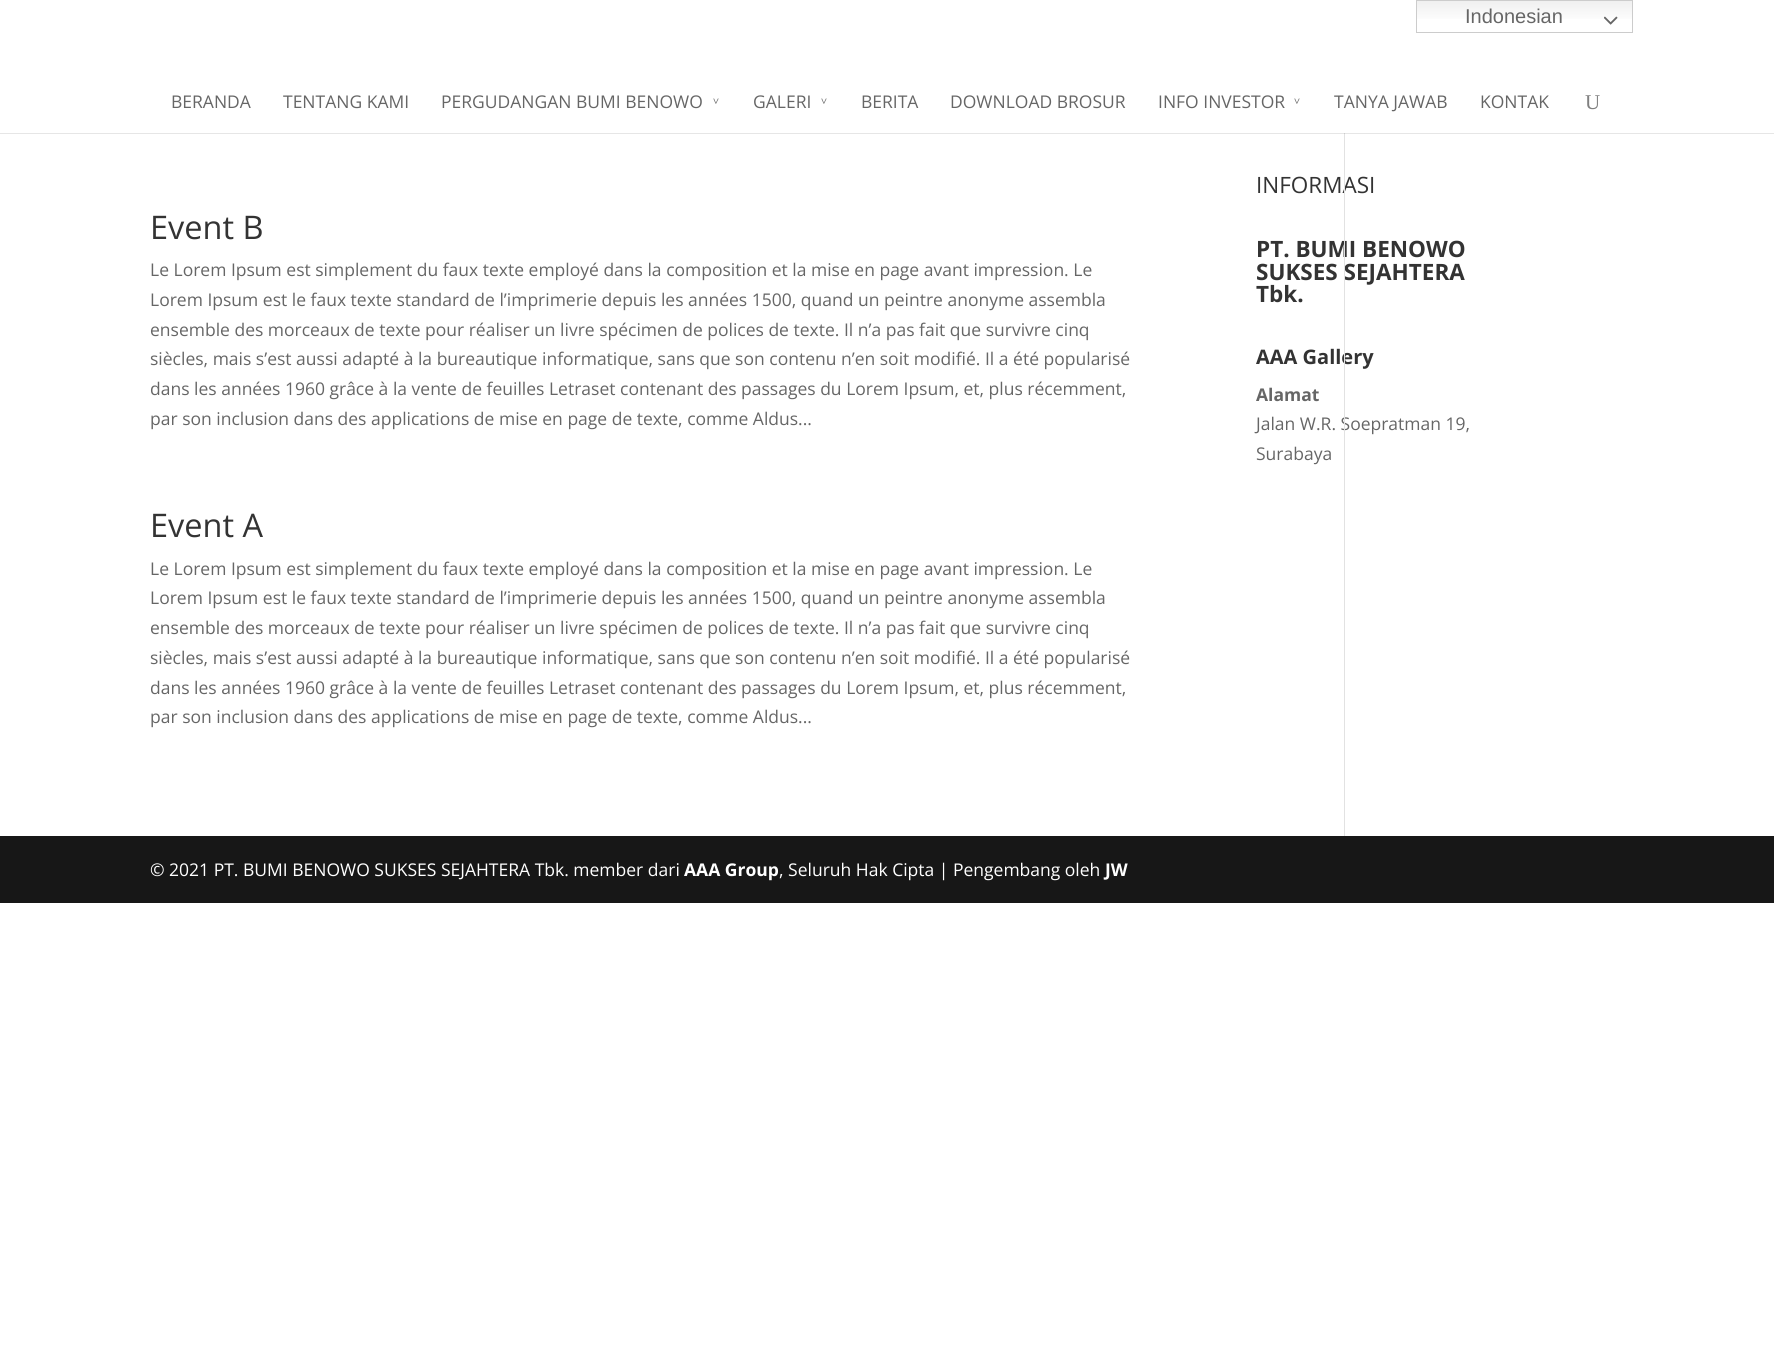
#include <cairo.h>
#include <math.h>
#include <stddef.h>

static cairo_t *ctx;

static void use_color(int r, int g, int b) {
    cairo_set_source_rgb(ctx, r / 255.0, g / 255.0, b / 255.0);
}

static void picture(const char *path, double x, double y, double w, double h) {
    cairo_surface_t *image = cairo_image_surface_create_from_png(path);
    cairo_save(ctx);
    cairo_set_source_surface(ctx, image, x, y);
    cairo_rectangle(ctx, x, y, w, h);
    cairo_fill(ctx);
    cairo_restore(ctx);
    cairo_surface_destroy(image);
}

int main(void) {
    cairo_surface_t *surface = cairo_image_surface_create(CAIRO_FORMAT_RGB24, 1774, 1367);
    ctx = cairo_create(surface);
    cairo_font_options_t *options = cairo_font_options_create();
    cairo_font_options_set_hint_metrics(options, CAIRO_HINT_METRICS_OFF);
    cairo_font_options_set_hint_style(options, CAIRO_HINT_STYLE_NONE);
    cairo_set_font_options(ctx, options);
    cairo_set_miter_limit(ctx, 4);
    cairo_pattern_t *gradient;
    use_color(255, 255, 255);
    cairo_paint(ctx);
    use_color(230, 230, 230);
    cairo_rectangle(ctx, 0, 133, 1774, 1);
    cairo_fill(ctx);
    gradient = cairo_pattern_create_linear(1524, 0, 1524, 33);
    cairo_pattern_add_color_stop_rgba(gradient, 0, 0.937, 0.937, 0.937, 1);
    cairo_pattern_add_color_stop_rgba(gradient, 0.7, 1, 1, 1, 1);
    cairo_set_source(ctx, gradient);
    cairo_pattern_destroy(gradient);
    cairo_rectangle(ctx, 1417, 1, 215, 18);
    cairo_fill(ctx);
    cairo_rectangle(ctx, 1416.5, 0.5, 216, 32);
    use_color(204, 204, 204);
    cairo_set_line_width(ctx, 1);
    cairo_stroke(ctx);
    cairo_select_font_face(ctx, "Liberation Sans", CAIRO_FONT_SLANT_NORMAL, CAIRO_FONT_WEIGHT_NORMAL);
    cairo_set_font_size(ctx, 20);
    use_color(102, 102, 102);
    cairo_move_to(ctx, 1465, 23);
    cairo_show_text(ctx, "Indonesian");
    picture("img1.png", 1604, 16, 14, 9);
    use_color(203, 203, 203);
    cairo_rectangle(ctx, 1344, 132, 1, 2);
    cairo_fill(ctx);
    use_color(255, 255, 255);
    cairo_rectangle(ctx, 1344, 132, 1, 1);
    cairo_fill(ctx);
    cairo_select_font_face(ctx, "Open Sans", CAIRO_FONT_SLANT_NORMAL, CAIRO_FONT_WEIGHT_NORMAL);
    cairo_set_font_size(ctx, 17.5);
    use_color(102, 102, 102);
    cairo_move_to(ctx, 171, 108);
    cairo_show_text(ctx, "BERANDA");
    cairo_move_to(ctx, 283, 108);
    cairo_show_text(ctx, "TENTANG KAMI");
    cairo_move_to(ctx, 441, 108);
    cairo_show_text(ctx, "PERGUDANGAN BUMI BENOWO");
    cairo_set_font_size(ctx, 11);
    cairo_save(ctx);
    cairo_translate(ctx, 712, 98);
    cairo_rotate(ctx, 90 * M_PI / 180);
    cairo_move_to(ctx, 0, 0);
    cairo_show_text(ctx, ">");
    cairo_restore(ctx);
    cairo_set_font_size(ctx, 17.5);
    cairo_move_to(ctx, 753, 108);
    cairo_show_text(ctx, "GALERI");
    cairo_set_font_size(ctx, 11);
    cairo_save(ctx);
    cairo_translate(ctx, 820, 98);
    cairo_rotate(ctx, 90 * M_PI / 180);
    cairo_move_to(ctx, 0, 0);
    cairo_show_text(ctx, ">");
    cairo_restore(ctx);
    cairo_set_font_size(ctx, 17.5);
    cairo_move_to(ctx, 861, 108);
    cairo_show_text(ctx, "BERITA");
    cairo_move_to(ctx, 950, 108);
    cairo_show_text(ctx, "DOWNLOAD BROSUR");
    cairo_move_to(ctx, 1158, 108);
    cairo_show_text(ctx, "INFO INVESTOR");
    cairo_set_font_size(ctx, 11);
    cairo_save(ctx);
    cairo_translate(ctx, 1293, 98);
    cairo_rotate(ctx, 90 * M_PI / 180);
    cairo_move_to(ctx, 0, 0);
    cairo_show_text(ctx, ">");
    cairo_restore(ctx);
    cairo_set_font_size(ctx, 17.5);
    cairo_move_to(ctx, 1334, 108);
    cairo_show_text(ctx, "TANYA JAWAB");
    cairo_move_to(ctx, 1480, 108);
    cairo_show_text(ctx, "KONTAK");
    cairo_select_font_face(ctx, "Liberation Serif", CAIRO_FONT_SLANT_NORMAL, CAIRO_FONT_WEIGHT_NORMAL);
    cairo_set_font_size(ctx, 21);
    use_color(128, 128, 128);
    cairo_move_to(ctx, 1585, 109);
    cairo_show_text(ctx, "U");
    cairo_select_font_face(ctx, "Open Sans", CAIRO_FONT_SLANT_NORMAL, CAIRO_FONT_WEIGHT_NORMAL);
    cairo_set_font_size(ctx, 22.5);
    use_color(51, 51, 51);
    cairo_move_to(ctx, 1256, 193);
    cairo_show_text(ctx, "INFORMASI");
    cairo_select_font_face(ctx, "Open Sans", CAIRO_FONT_SLANT_NORMAL, CAIRO_FONT_WEIGHT_BOLD);
    cairo_move_to(ctx, 1256, 257);
    cairo_show_text(ctx, "PT. BUMI BENOWO");
    cairo_move_to(ctx, 1256, 280);
    cairo_show_text(ctx, "SUKSES SEJAHTERA");
    cairo_set_font_size(ctx, 20);
    cairo_move_to(ctx, 1256, 364);
    cairo_show_text(ctx, "AAA Gallery");
    cairo_select_font_face(ctx, "Open Sans", CAIRO_FONT_SLANT_NORMAL, CAIRO_FONT_WEIGHT_NORMAL);
    cairo_set_font_size(ctx, 17.5);
    use_color(102, 102, 102);
    cairo_move_to(ctx, 1256, 430);
    cairo_show_text(ctx, "Jalan W.R. Soepratman 19,");
    use_color(226, 226, 226);
    cairo_rectangle(ctx, 1344, 134, 1, 702);
    cairo_fill(ctx);
    cairo_set_font_size(ctx, 32.5);
    use_color(51, 51, 51);
    cairo_move_to(ctx, 150, 239);
    cairo_show_text(ctx, "Event B");
    cairo_set_font_size(ctx, 17.5);
    use_color(102, 102, 102);
    cairo_move_to(ctx, 150, 276);
    cairo_show_text(ctx, "Le Lorem Ipsum est simplement du faux texte employé dans la composition et la mise en page avant impression. Le");
    cairo_move_to(ctx, 150, 306);
    cairo_show_text(ctx, "Lorem Ipsum est le faux texte standard de l’imprimerie depuis les années 1500, quand un peintre anonyme assembla");
    cairo_move_to(ctx, 150, 336);
    cairo_show_text(ctx, "ensemble des morceaux de texte pour réaliser un livre spécimen de polices de texte. Il n’a pas fait que survivre cinq");
    cairo_move_to(ctx, 150, 365);
    cairo_show_text(ctx, "siècles, mais s’est aussi adapté à la bureautique informatique, sans que son contenu n’en soit modifié. Il a été popularisé");
    cairo_move_to(ctx, 150, 395);
    cairo_show_text(ctx, "dans les années 1960 grâce à la vente de feuilles Letraset contenant des passages du Lorem Ipsum, et, plus récemment,");
    cairo_move_to(ctx, 150, 425);
    cairo_show_text(ctx, "par son inclusion dans des applications de mise en page de texte, comme Aldus...");
    cairo_set_font_size(ctx, 32.5);
    use_color(51, 51, 51);
    cairo_move_to(ctx, 150, 537);
    cairo_show_text(ctx, "Event A");
    cairo_set_font_size(ctx, 17.5);
    use_color(102, 102, 102);
    cairo_move_to(ctx, 150, 575);
    cairo_show_text(ctx, "Le Lorem Ipsum est simplement du faux texte employé dans la composition et la mise en page avant impression. Le");
    cairo_move_to(ctx, 150, 604);
    cairo_show_text(ctx, "Lorem Ipsum est le faux texte standard de l’imprimerie depuis les années 1500, quand un peintre anonyme assembla");
    cairo_move_to(ctx, 150, 634);
    cairo_show_text(ctx, "ensemble des morceaux de texte pour réaliser un livre spécimen de polices de texte. Il n’a pas fait que survivre cinq");
    cairo_move_to(ctx, 150, 664);
    cairo_show_text(ctx, "siècles, mais s’est aussi adapté à la bureautique informatique, sans que son contenu n’en soit modifié. Il a été popularisé");
    cairo_move_to(ctx, 150, 694);
    cairo_show_text(ctx, "dans les années 1960 grâce à la vente de feuilles Letraset contenant des passages du Lorem Ipsum, et, plus récemment,");
    cairo_move_to(ctx, 150, 723);
    cairo_show_text(ctx, "par son inclusion dans des applications de mise en page de texte, comme Aldus...");
    cairo_select_font_face(ctx, "Open Sans", CAIRO_FONT_SLANT_NORMAL, CAIRO_FONT_WEIGHT_BOLD);
    cairo_set_font_size(ctx, 22.5);
    use_color(51, 51, 51);
    cairo_move_to(ctx, 1256, 302);
    cairo_show_text(ctx, "Tbk.");
    cairo_set_font_size(ctx, 17.5);
    use_color(102, 102, 102);
    cairo_move_to(ctx, 1256, 401);
    cairo_show_text(ctx, "Alamat");
    cairo_select_font_face(ctx, "Open Sans", CAIRO_FONT_SLANT_NORMAL, CAIRO_FONT_WEIGHT_NORMAL);
    cairo_move_to(ctx, 1256, 460);
    cairo_show_text(ctx, "Surabaya");
    use_color(23, 23, 23);
    cairo_rectangle(ctx, 0, 836, 1774, 67);
    cairo_fill(ctx);
    use_color(255, 255, 255);
    cairo_move_to(ctx, 150, 876);
    cairo_show_text(ctx, "© 2021 PT. BUMI BENOWO SUKSES SEJAHTERA Tbk. member dari");
    cairo_select_font_face(ctx, "Open Sans", CAIRO_FONT_SLANT_NORMAL, CAIRO_FONT_WEIGHT_BOLD);
    cairo_move_to(ctx, 684, 876);
    cairo_show_text(ctx, "AAA Group");
    cairo_select_font_face(ctx, "Open Sans", CAIRO_FONT_SLANT_NORMAL, CAIRO_FONT_WEIGHT_NORMAL);
    cairo_move_to(ctx, 779, 876);
    cairo_show_text(ctx, ", Seluruh Hak Cipta | Pengembang oleh");
    cairo_select_font_face(ctx, "Open Sans", CAIRO_FONT_SLANT_NORMAL, CAIRO_FONT_WEIGHT_BOLD);
    cairo_move_to(ctx, 1105, 876);
    cairo_show_text(ctx, "JW");
    cairo_surface_write_to_png(surface, "result.png");
    cairo_font_options_destroy(options);
    cairo_destroy(ctx);
    cairo_surface_destroy(surface);
    return 0;
}
